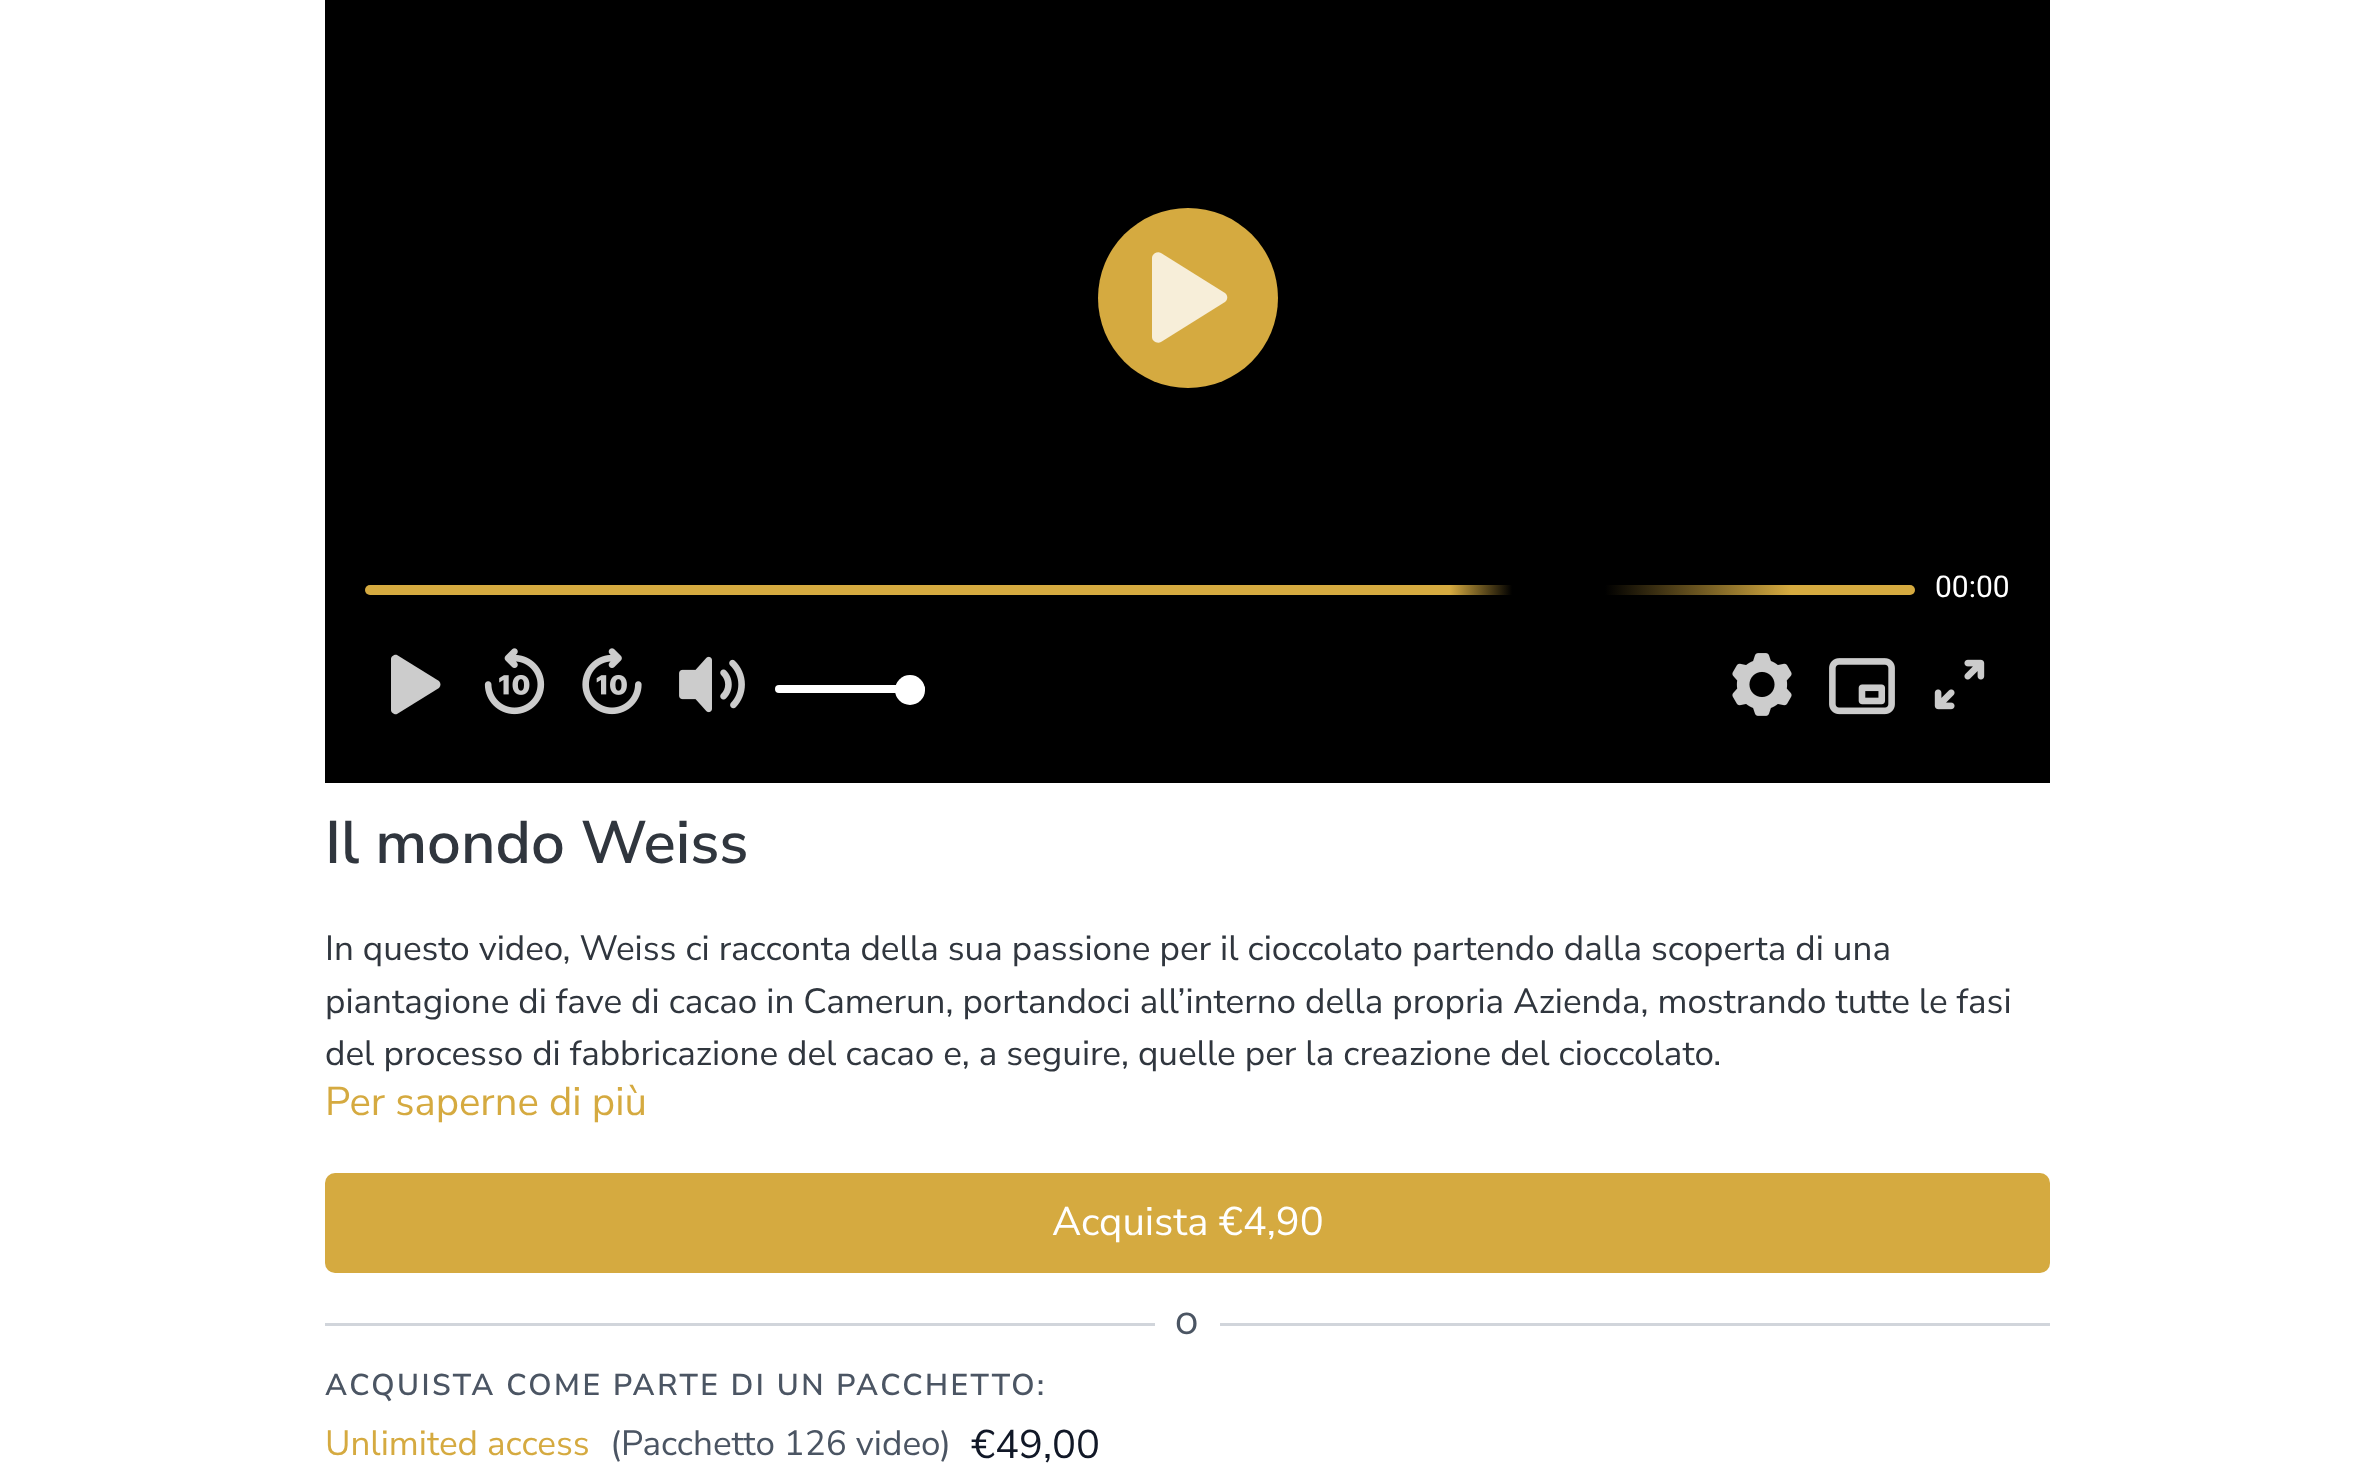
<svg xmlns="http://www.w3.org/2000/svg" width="2374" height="1483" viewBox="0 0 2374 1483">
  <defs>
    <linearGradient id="g1" gradientUnits="userSpaceOnUse" x1="365" y1="595" x2="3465" y2="595"><stop offset="0.35" stop-color="#d5aa40"/><stop offset="0.37" stop-color="#000"/><stop offset="0.4" stop-color="#000"/><stop offset="0.46" stop-color="#d5aa40"/><stop offset="1" stop-color="#d5aa40"/></linearGradient>
  </defs>
  <rect width="100%" height="100%" fill="#fff"/>
  <path d="M325 0h1725v783H325z" fill="#000"/>
  <circle cx="1188" cy="298" r="90" fill="#d5aa40"/>
  <path d="M1161 253C1157 251 1152 254 1152 258V337C1152 341 1157 344 1161 342L1225 302C1228 300 1228 295 1225 293Z" fill="#f7eed9"/>
  <rect x="365" y="585" width="1550" height="10" rx="5" fill="url(#g1)"/>
  <path d="M397 655C395 654 391 656 391 659V710C391 713 395 715 397 714L439 688C441 686 441 683 439 681Z" fill="#ccc"/>
  <image x="484" y="648" width="61" height="67" href="img/1.png"/>
  <image x="582" y="648" width="60" height="67" href="img/2.png"/>
  <image x="679" y="656" width="66" height="57" href="img/3.png"/>
  <rect x="775" y="685" width="150" height="8" rx="4" fill="#fff"/>
  <circle cx="910" cy="690" r="15" fill="#fff"/>
  <image x="1732" y="653" width="60" height="63" href="img/4.png"/>
  <image x="1829" y="658" width="66" height="57" href="img/5.png"/>
  <image x="1934" y="659" width="51" height="51" href="img/6.png"/>
  <rect x="325" y="1173" width="1725" height="100" rx="10" fill="#d5aa40"/>
  <path d="M325 1323h1725v3H325z" fill="#d1d5db"/>
  <path d="M1155 1323h65v3H1155z" fill="#fff"/>
  <text x="1935" y="597" font-family="Roboto" font-size="30" fill="#fff">00:00</text>
  <text x="325" y="863" font-family="Nunito Sans" font-size="60" font-weight="600" fill="#30363e">Il mondo Weiss</text>
  <g font-family="Nunito Sans" font-size="35" fill="#30363e">
    <text x="325" y="960">In questo video, Weiss ci racconta della sua passione per il cioccolato partendo dalla scoperta di una</text>
    <text x="325" y="1013">piantagione di fave di cacao in Camerun, portandoci all’interno della propria Azienda, mostrando tutte le fasi</text>
    <text x="325" y="1065">del processo di fabbricazione del cacao e, a seguire, quelle per la creazione del cioccolato.</text>
  </g>
  <text x="325" y="1115" font-family="Nunito Sans" font-size="40" fill="#d5aa40">Per saperne di più</text>
  <text x="1052" y="1235" font-family="Nunito Sans" font-size="40" fill="#fff">Acquista €4,90</text>
  <g font-family="Nunito Sans" font-size="30" font-weight="600" letter-spacing="2.5" fill="#4b5563">
    <text x="1175" y="1334">O</text>
    <text x="325" y="1395">ACQUISTA COME PARTE DI UN PACCHETTO:</text>
  </g>
  <text x="325" y="1455" font-family="Nunito Sans" font-size="35" fill="#d5aa40">Unlimited access</text>
  <text x="610" y="1455" font-family="Nunito Sans" font-size="35" fill="#4b5563">(Pacchetto 126 video)</text>
  <text x="971" y="1458" font-family="Nunito Sans" font-size="40" fill="#111827">€49,00</text>
</svg>
